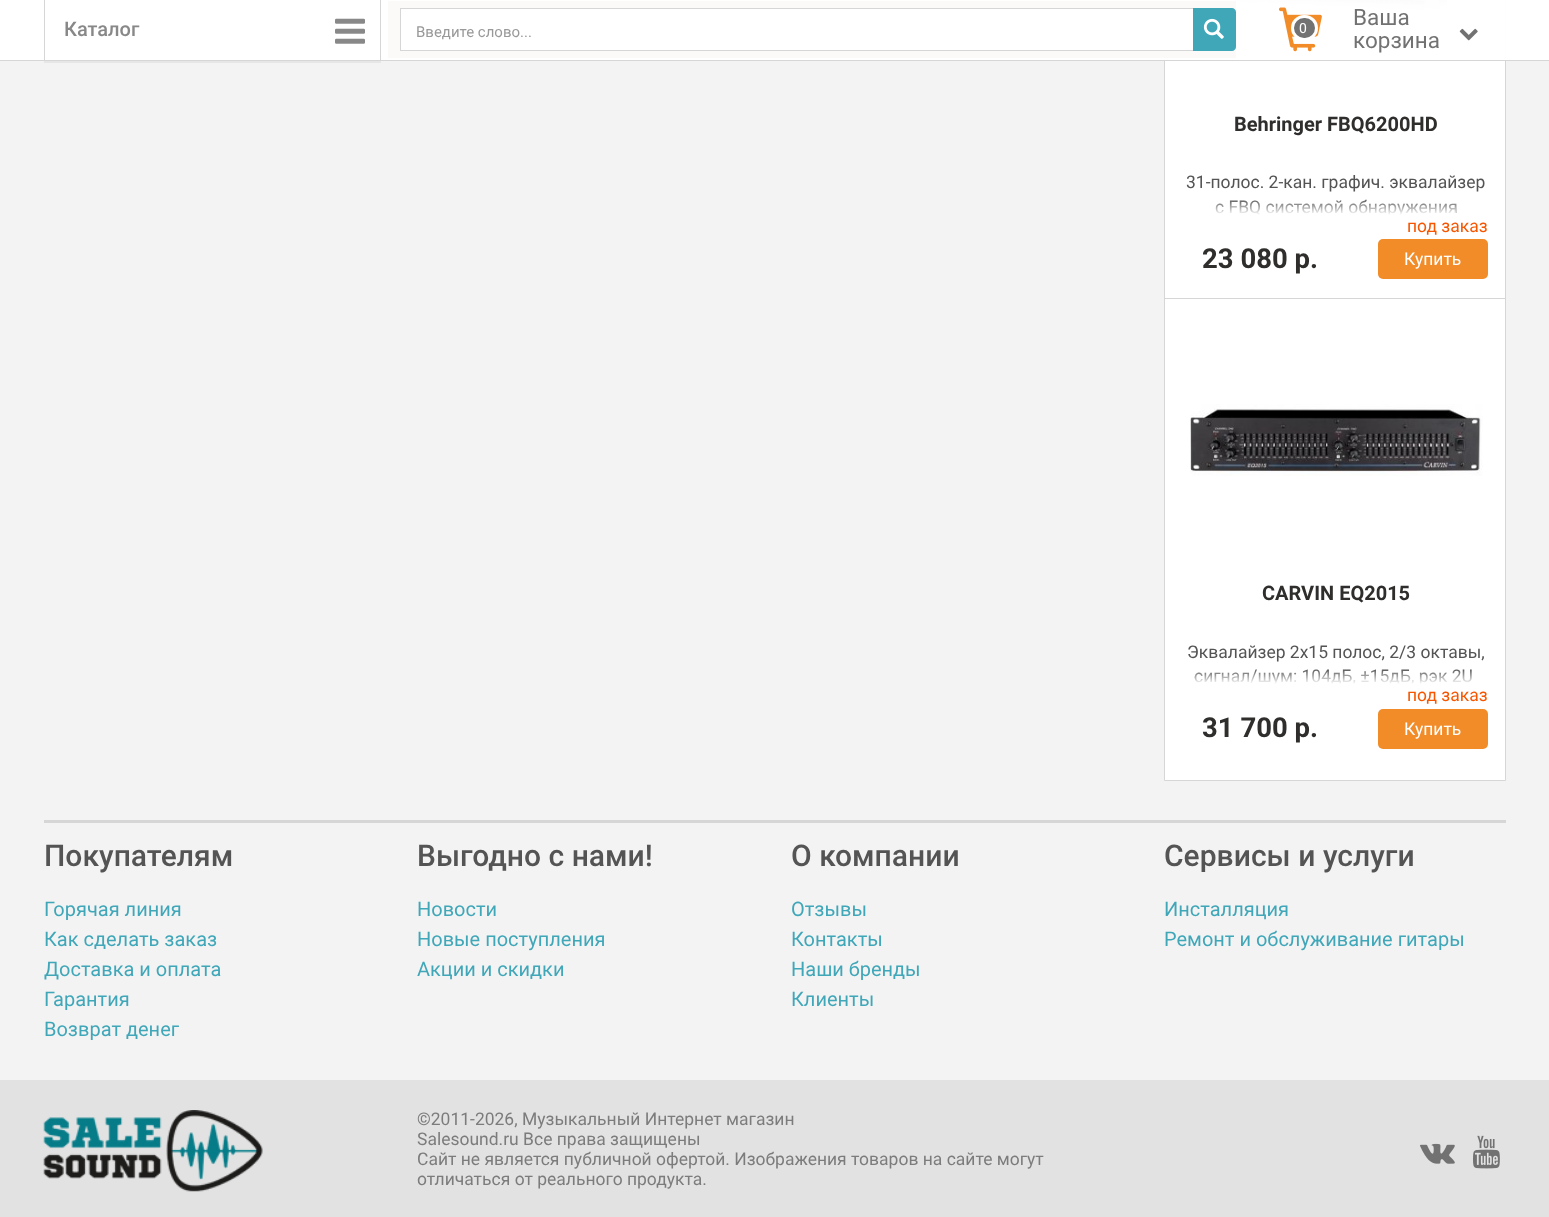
<svg xmlns="http://www.w3.org/2000/svg" width="1549" height="1217" viewBox="0 0 1549 1217">
  <defs>
    <clipPath id="clip1"><path d="M1184 171h304v44H1184z"/></clipPath>
    <linearGradient id="g1" gradientUnits="userSpaceOnUse" x1="1336" y1="199" x2="1336" y2="215"><stop offset="0" stop-color="#fff" stop-opacity="0"/><stop offset="1" stop-color="#fff"/></linearGradient>
    <clipPath id="clip2"><path d="M1184 640h304v44H1184z"/></clipPath>
    <linearGradient id="g2" gradientUnits="userSpaceOnUse" x1="1336" y1="669" x2="1336" y2="684"><stop offset="0" stop-color="#fff" stop-opacity="0"/><stop offset="1" stop-color="#fff"/></linearGradient>
  </defs>
  <rect width="100%" height="100%" fill="#f3f3f3"/>
  <path d="M1164.5 -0.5h341v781H1164.5z" fill="#fff" stroke="#d6d6d6"/>
  <image x="1225" y="0" width="223" height="18" href="img/5.png"/>
  <path d="M0 0h1549v60H0z" fill="#fffffff7"/>
  <path d="M0 60h1549v1H0z" fill="#d6d6d6"/>
  <path d="M44 1h337v62H44z" fill="#0000000d" filter="blur(0.5px)"/>
  <path d="M45 1h335v59H45z" fill="#fff"/>
  <path d="M380 0h1v61H380z" fill="#d6d6d6"/>
  <path d="M44 60h337v1H44z" fill="#d6d6d6"/>
  <path d="M44 0h1v61H44z" fill="#d6d6d6"/>
  <image x="335" y="18" width="30" height="26" href="img/1.png"/>
  <path d="M388 1h848v57H388z" fill="#fcfaf9"/>
  <path d="M401 9h792v41H401z" fill="#fff"/>
  <path d="M400 8h800v1H400z" fill="#d6d6d6"/>
  <path d="M400 50h800v1H400z" fill="#d6d6d6"/>
  <path d="M400 8h1v43H400z" fill="#d6d6d6"/>
  <path d="M1193 8H1232C1234 8 1236 10 1236 12V47C1236 49 1234 51 1232 51H1193Z" fill="#40a7b9"/>
  <image x="1203" y="18" width="21" height="21" href="img/2.png"/>
  <image x="1279" y="7" width="43" height="45" href="img/3.png"/>
  <rect x="1292.5" y="16.5" width="24" height="23" rx="11.5" fill="#727272" stroke="#fff" stroke-width="3"/>
  <image x="1459" y="28" width="19" height="13" href="img/4.png"/>
  <path d="M1165 298h340v1H1165z" fill="#d6d6d6"/>
  <rect x="1378" y="239" width="110" height="40" rx="5" fill="#f18c29"/>
  <image x="1190" y="404" width="293" height="72" href="img/6.png"/>
  <rect x="1378" y="709" width="110" height="40" rx="5" fill="#f18c29"/>
  <path d="M44 820h1462v3H44z" fill="#d6d6d6"/>
  <path d="M0 1080h1549v137H0z" fill="#e2e2e2"/>
  <image x="43" y="1110" width="220" height="82" href="img/7.png"/>
  <image x="1420" y="1143" width="35" height="21" href="img/8.png"/>
  <image x="1473" y="1135" width="27" height="34" href="img/9.png"/>
  <text x="64" y="36" font-family="Roboto" font-size="20" font-weight="500" fill="#888">Каталог</text>
  <text x="416" y="37" font-family="Roboto" font-size="15" fill="#999">Введите слово...</text>
  <g font-family="Roboto" font-size="22.5" fill="#727272">
    <text x="1353" y="25">Ваша</text>
    <text x="1353" y="48">корзина</text>
  </g>
  <text x="1299" y="33" font-family="Roboto" font-size="14" fill="#fff">0</text>
  <text x="1234" y="131" font-family="Roboto" font-size="20" font-weight="bold" fill="#2f2e2d">Behringer FBQ6200HD</text>
  <text x="1186" y="188" font-family="Roboto" font-size="17.5" fill="#545454">31-полос. 2-кан. графич. эквалайзер</text>
  <g clip-path="url(#clip1)">
    <text x="1215" y="213" font-family="Roboto" font-size="17.5" fill="#545454">с FBQ системой обнаружения</text>
  </g>
  <path d="M1215 200h241v15H1215z" fill="url(#g1)"/>
  <text x="1407" y="232" font-family="Roboto" font-size="17.5" fill="#f65600">под заказ</text>
  <text x="1202" y="268" font-family="Roboto" font-size="27.5" font-weight="bold" fill="#2f2e2d">23 080 р.</text>
  <text x="1404" y="265" font-family="Roboto" font-size="17.5" fill="#fff">Купить</text>
  <text x="1262" y="600" font-family="Roboto" font-size="20" font-weight="bold" fill="#2f2e2d">CARVIN EQ2015</text>
  <text x="1187" y="658" font-family="Roboto" font-size="17.5" fill="#545454">Эквалайзер 2х15 полос, 2/3 октавы,</text>
  <g clip-path="url(#clip2)">
    <text x="1194" y="682" font-family="Roboto" font-size="17.5" fill="#545454">сигнал/шум: 104дБ, ±15дБ, рэк 2U</text>
  </g>
  <path d="M1195 669h277v15H1195z" fill="url(#g2)"/>
  <text x="1407" y="701" font-family="Roboto" font-size="17.5" fill="#f65600">под заказ</text>
  <text x="1202" y="737" font-family="Roboto" font-size="27.5" font-weight="bold" fill="#2f2e2d">31 700 р.</text>
  <text x="1404" y="735" font-family="Roboto" font-size="17.5" fill="#fff">Купить</text>
  <text x="44" y="866" font-family="Roboto" font-size="30" font-weight="500" fill="#545454">Покупателям</text>
  <g font-family="Roboto" font-size="20" fill="#40a7b9">
    <text x="44" y="916">Горячая линия</text>
    <text x="44" y="946">Как сделать заказ</text>
    <text x="44" y="976">Доставка и оплата</text>
    <text x="44" y="1006">Гарантия</text>
    <text x="44" y="1036">Возврат денег</text>
  </g>
  <text x="417" y="866" font-family="Roboto" font-size="30" font-weight="500" fill="#545454">Выгодно с нами!</text>
  <g font-family="Roboto" font-size="20" fill="#40a7b9">
    <text x="417" y="916">Новости</text>
    <text x="417" y="946">Новые поступления</text>
    <text x="417" y="976">Акции и скидки</text>
  </g>
  <text x="791" y="866" font-family="Roboto" font-size="30" font-weight="500" fill="#545454">О компании</text>
  <g font-family="Roboto" font-size="20" fill="#40a7b9">
    <text x="791" y="916">Отзывы</text>
    <text x="791" y="946">Контакты</text>
    <text x="791" y="976">Наши бренды</text>
    <text x="791" y="1006">Клиенты</text>
  </g>
  <text x="1164" y="866" font-family="Roboto" font-size="30" font-weight="500" fill="#545454">Сервисы и услуги</text>
  <g font-family="Roboto" font-size="20" fill="#40a7b9">
    <text x="1164" y="916">Инсталляция</text>
    <text x="1164" y="946">Ремонт и обслуживание гитары</text>
  </g>
  <g font-family="Roboto" font-size="17.5" fill="#7c7c7c">
    <text x="417" y="1125">©2011-2026, Музыкальный Интернет магазин</text>
    <text x="417" y="1145">Salesound.ru Все права защищены</text>
    <text x="417" y="1165">Сайт не является публичной офертой. Изображения товаров на сайте могут</text>
    <text x="417" y="1185">отличаться от реального продукта.</text>
  </g>
</svg>
